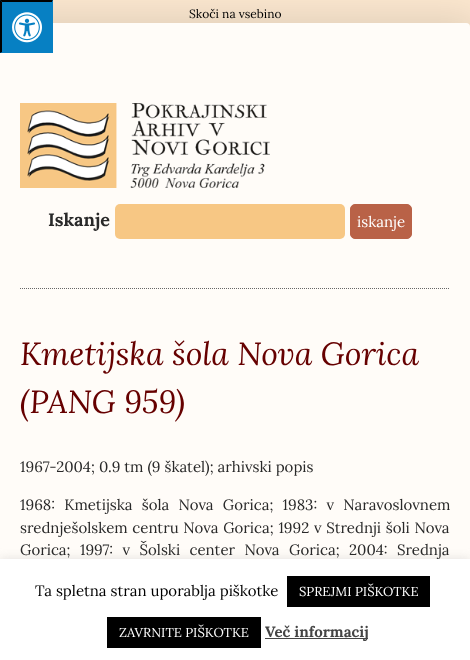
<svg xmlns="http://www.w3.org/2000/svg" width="470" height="660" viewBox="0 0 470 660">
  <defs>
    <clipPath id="clip1"><path d="M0 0H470V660H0ZM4 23H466C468 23 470 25 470 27V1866C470 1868 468 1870 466 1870H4C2 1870 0 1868 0 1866V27C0 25 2 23 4 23Z" clip-rule="evenodd"/></clipPath>
  </defs>
  <rect width="100%" height="100%" fill="#fbe7cf"/>
  <g clip-path="url(#clip1)">
    <rect x="-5" y="18" width="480" height="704" rx="9" fill="#0000001c" filter="blur(17.5px)"/>
  </g>
  <rect y="23" width="470" height="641" rx="4" fill="#ffffffd9"/>
  <path d="M0 0h53v53H0z" fill="#0780c3"/>
  <path d="M0 0H53L52 2H2Z" fill="#000"/>
  <path d="M53 0V53L52 52V2Z" fill="#0780c3"/>
  <path d="M0 53V0L2 2V52Z" fill="#000"/>
  <image x="12" y="12" width="30" height="31" href="img/1.png"/>
  <image x="20" y="103" width="250" height="85" href="img/2.png"/>
  <rect x="115" y="204" width="230" height="35" rx="5" fill="#f7c784"/>
  <rect x="350.5" y="204.5" width="61" height="34" rx="4.5" fill="#b96247" stroke="#b96247"/>
  <path d="M20 288.5H450" fill="none" stroke="#666" stroke-dasharray="1 1"/>
  <path d="M0 558h470v101H0z" fill="#acabab4d" filter="blur(5px)"/>
  <text x="189" y="18" font-family="Lora" font-size="12" fill="#000">Skoči na vsebino</text>
  <text x="48" y="226" font-family="Lora" font-size="18" font-weight="bold" fill="#292929">Iskanje</text>
  <text x="357" y="227" font-family="Lora" font-size="15" fill="#fff">iskanje</text>
  <g font-family="Lora" font-size="32" font-style="italic" fill="#600">
    <text x="20" y="365">Kmetijska šola Nova Gorica</text>
    <text x="20" y="413">(PANG 959)</text>
  </g>
  <g font-family="Lora" font-size="15" fill="#292929">
    <text x="20" y="472">1967-2004; 0.9 tm (9 škatel); arhivski popis</text>
    <text x="20" y="510" word-spacing="5.25">1968: Kmetijska šola Nova Gorica; 1983: v Naravoslovnem</text>
    <text x="20" y="533" word-spacing="0.75">srednješolskem centru Nova Gorica; 1992 v Strednji šoli Nova</text>
    <text x="20" y="555" word-spacing="5.5">Gorica; 1997: v Šolski center Nova Gorica; 2004: Srednja</text>
  </g>
  <path d="M0 559h470v101H0z" fill="#fff"/>
  <text x="35" y="596" font-family="Lora" font-size="15" fill="#000">Ta spletna stran uporablja piškotke</text>
  <path d="M287 576h143v31H287z" fill="#000"/>
  <text x="299" y="596" font-family="Lora" font-size="13" fill="#fff">SPREJMI PIŠKOTKE</text>
  <path d="M107 617h154v31H107z" fill="#000"/>
  <text x="119" y="637" font-family="Lora" font-size="13" fill="#fff">ZAVRNITE PIŠKOTKE</text>
  <path d="M265 638h103v1H265z" fill="#444"/>
  <text x="265" y="637" font-family="Lora" font-size="15" font-weight="bold" fill="#444">Več informacij</text>
</svg>
